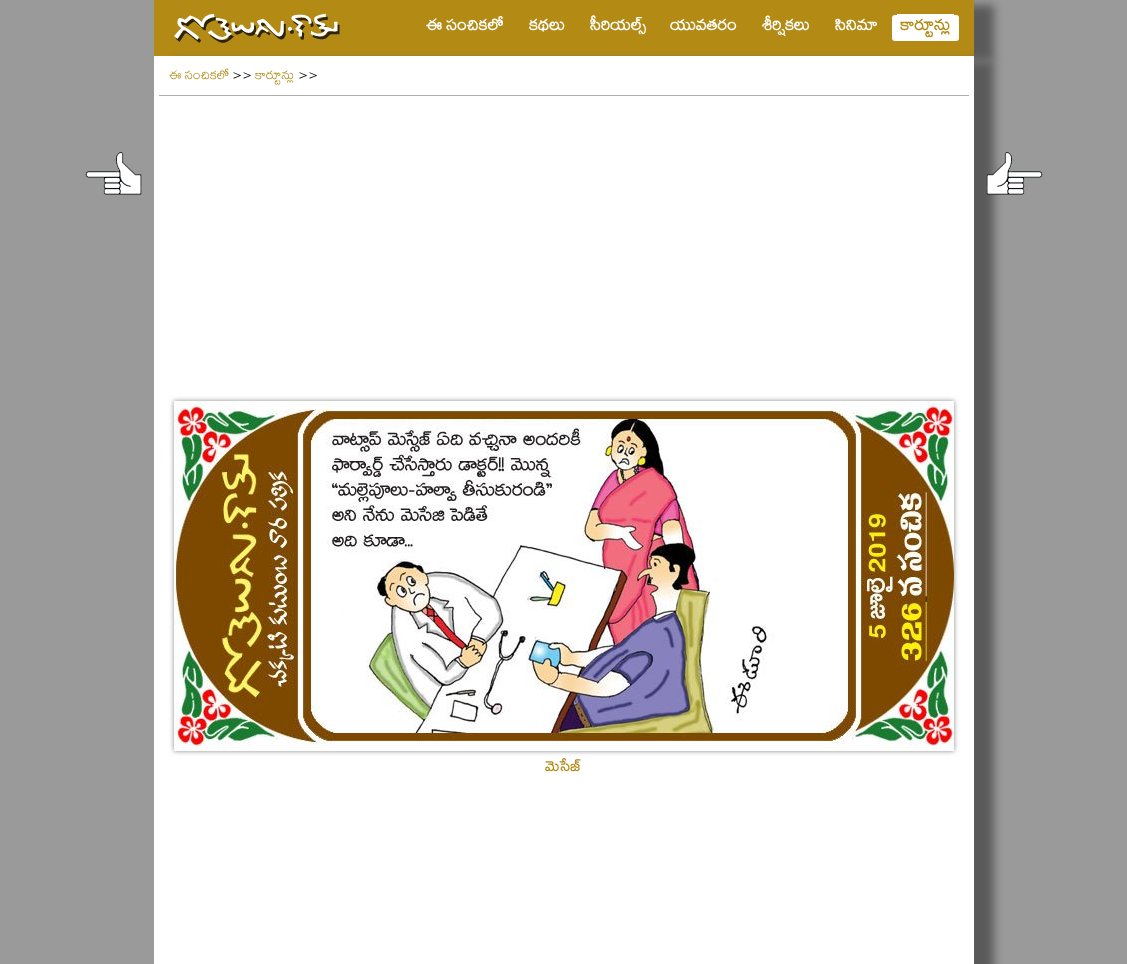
<svg xmlns="http://www.w3.org/2000/svg" width="1127" height="964" viewBox="0 0 1127 964">
  <rect width="100%" height="100%" fill="#9a9a9a"/>
  <path d="M174 5h820v56H174z" fill="#5a5a5a" filter="blur(5px)"/>
  <path d="M154 0h820v56H154z" fill="#b28a14"/>
  <image x="174" y="13" width="166" height="30" href="img/1.png"/>
  <rect x="892" y="15" width="67" height="26" rx="3" fill="#fff"/>
  <path d="M897 14h57v1H897z" fill="#fff"/>
  <image x="85" y="152" width="57" height="43" href="img/2.png"/>
  <path d="M174 61h820v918H174z" fill="#5a5a5a" filter="blur(5px)"/>
  <path d="M154 56h820v908H154z" fill="#fff"/>
  <path d="M159 95h810v1H159z" fill="#adadad"/>
  <path d="M174 401h780v350H174z" fill="#888" filter="blur(2.5px)"/>
  <image x="174" y="401" width="780" height="350" href="img/3.png"/>
  <image x="986" y="152" width="57" height="43" href="img/4.png"/>
  <g font-family="Mallanna" font-size="18" font-weight="bold" fill="#fff">
    <text x="426" y="30">ఈ సంచికలో</text>
    <text x="529" y="30">కథలు</text>
    <text x="590" y="30">సీరియల్స్</text>
    <text x="670" y="30">యువతరం</text>
    <text x="762" y="30">శీర్షికలు</text>
    <text x="835" y="30">సినిమా</text>
  </g>
  <text x="900" y="30" font-family="Mallanna" font-size="18" font-weight="bold" fill="#b28a14">కార్టూన్లు</text>
  <text x="169" y="79" font-family="Mallanna" font-size="14" fill="#b28a14">ఈ సంచికలో</text>
  <text x="232" y="79" font-family="Mallanna" font-size="14" fill="#000">&gt;&gt;</text>
  <text x="255" y="79" font-family="Mallanna" font-size="14" fill="#b28a14">కార్టూన్లు</text>
  <text x="298" y="79" font-family="Mallanna" font-size="14" fill="#000">&gt;&gt;</text>
  <text x="545" y="771" font-family="Mallanna" font-size="16" font-weight="bold" fill="#b28a14">మెసేజ్</text>
</svg>
